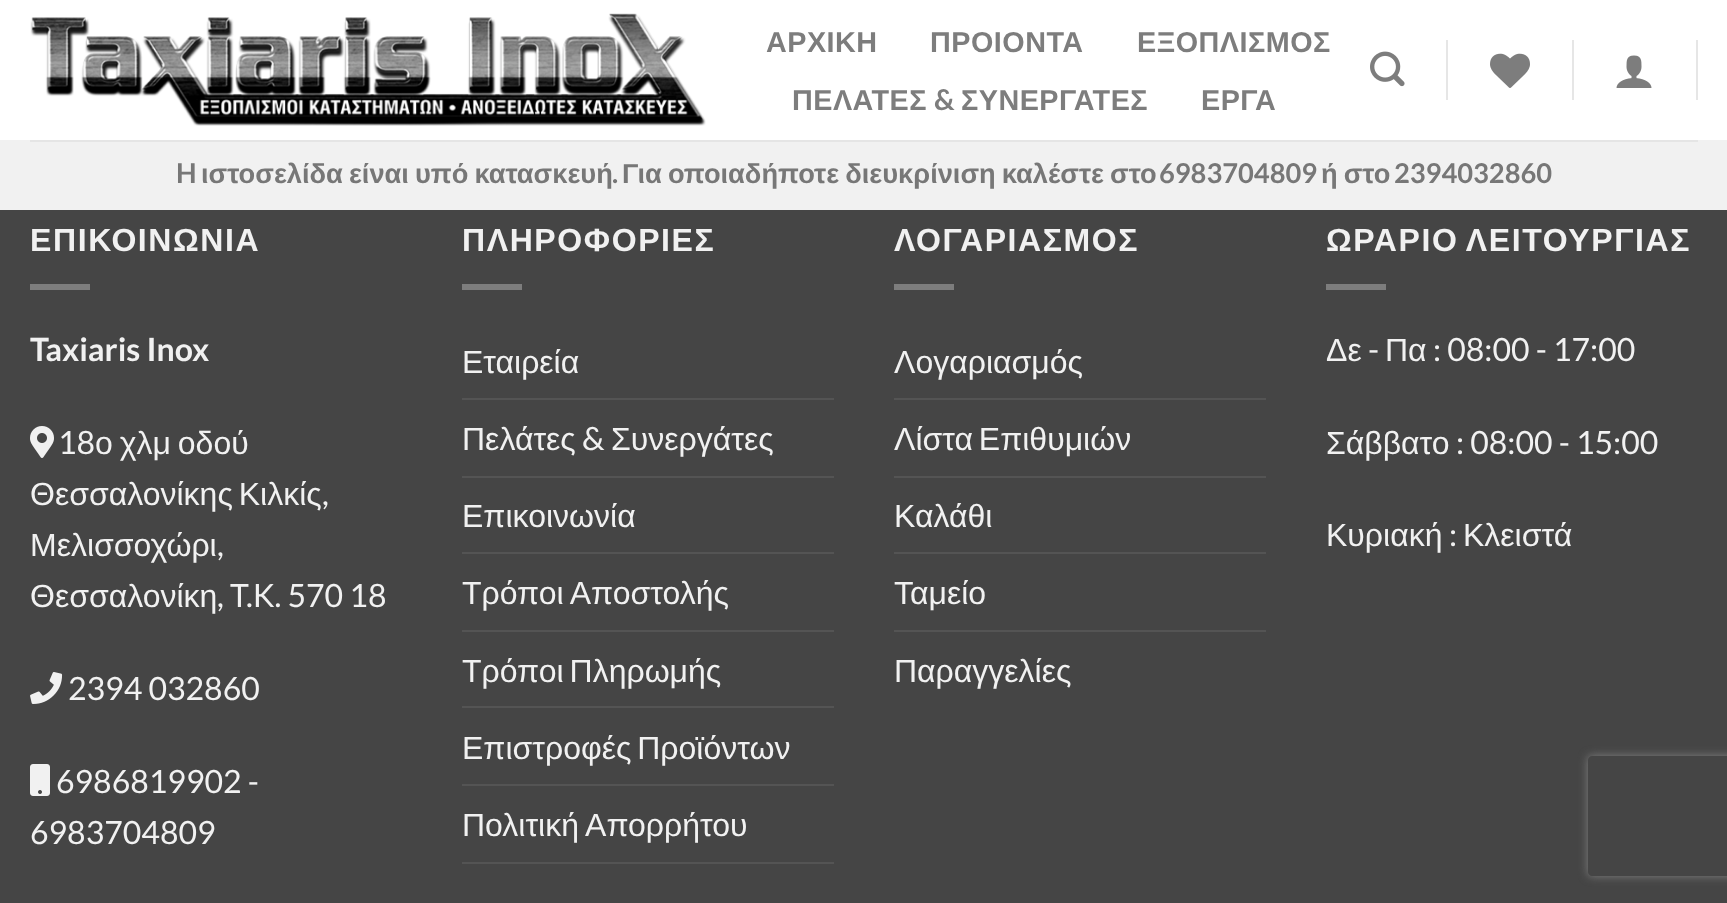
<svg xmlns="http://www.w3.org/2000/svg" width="1727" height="903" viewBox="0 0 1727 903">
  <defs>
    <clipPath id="clip1"><path d="M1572 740H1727V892H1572ZM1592 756H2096C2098 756 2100 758 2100 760V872C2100 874 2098 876 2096 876H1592C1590 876 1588 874 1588 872V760C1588 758 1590 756 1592 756Z" clip-rule="evenodd"/></clipPath>
  </defs>
  <rect width="100%" height="100%" fill="#fff"/>
  <image x="30" y="13" width="676" height="113" href="img/1.png"/>
  <image x="1370" y="51" width="35" height="36" href="img/2.png"/>
  <path d="M1446 40h2v60H1446z" fill="#e6e6e6"/>
  <image x="1490" y="53" width="40" height="35" href="img/3.png"/>
  <path d="M1572 40h2v60H1572z" fill="#e6e6e6"/>
  <image x="1616" y="55" width="36" height="33" href="img/4.png"/>
  <path d="M1696 40h2v60H1696z" fill="#e6e6e6"/>
  <path d="M0 140h1727v70H0z" fill="#f1f1f1"/>
  <path d="M30 140h1668v2H30z" fill="#e5e5e5"/>
  <path d="M0 210h1727v693H0z" fill="#454545"/>
  <path d="M30 284h60v6H30z" fill="#7d7d7d"/>
  <image x="30" y="426" width="24" height="32" href="img/5.png"/>
  <image x="30" y="672" width="33" height="32" href="img/6.png"/>
  <image x="30" y="764" width="20" height="32" href="img/7.png"/>
  <path d="M462 284h60v6H462z" fill="#7d7d7d"/>
  <path d="M462 398h372v2H462z" fill="#545454"/>
  <path d="M462 476h372v2H462z" fill="#545454"/>
  <path d="M462 552h372v2H462z" fill="#545454"/>
  <path d="M462 630h372v2H462z" fill="#545454"/>
  <path d="M462 706h372v2H462z" fill="#545454"/>
  <path d="M462 784h372v2H462z" fill="#545454"/>
  <path d="M462 862h372v2H462z" fill="#545454"/>
  <path d="M894 284h60v6H894z" fill="#7d7d7d"/>
  <path d="M894 398h372v2H894z" fill="#545454"/>
  <path d="M894 476h372v2H894z" fill="#545454"/>
  <path d="M894 552h372v2H894z" fill="#545454"/>
  <path d="M894 630h372v2H894z" fill="#545454"/>
  <path d="M1326 284h60v6H1326z" fill="#7d7d7d"/>
  <g clip-path="url(#clip1)">
    <rect x="1588" y="756" width="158" height="120" rx="4" fill="#808080" filter="blur(5px)"/>
  </g>
  <g font-family="Liberation Sans" font-size="28.75" font-weight="bold" letter-spacing="0.5" fill="#7d7d7d">
    <text x="766" y="52">ΑΡΧΙΚΗ</text>
    <text x="930" y="52">ΠΡΟΙΟΝΤΑ</text>
    <text x="1137" y="52">ΕΞΟΠΛΙΣΜΟΣ</text>
    <text x="792" y="110">ΠΕΛΑΤΕΣ</text>
  </g>
  <text x="934" y="110" font-family="Lato" font-size="28.75" font-weight="bold" letter-spacing="0.5" fill="#7d7d7d">&amp;</text>
  <g font-family="Liberation Sans" font-size="28.75" font-weight="bold" letter-spacing="0.5" fill="#7d7d7d">
    <text x="961" y="110">ΣΥΝΕΡΓΑΤΕΣ</text>
    <text x="1201" y="110">ΕΡΓΑ</text>
  </g>
  <text x="176" y="183" font-family="Lato" font-size="27.25" font-weight="bold" fill="#777">H</text>
  <text x="201" y="183" word-spacing="-1.5" font-family="Liberation Sans" font-size="27.25" font-weight="bold" fill="#777">ιστοσελίδα είναι υπό κατασκευή</text>
  <text x="612" y="183" font-family="Lato" font-size="27.25" font-weight="bold" fill="#777">.</text>
  <text x="622" y="183" word-spacing="-1.5" font-family="Liberation Sans" font-size="27.25" font-weight="bold" fill="#777">Για οποιαδήποτε διευκρίνιση καλέστε στο</text>
  <text x="1159" y="183" font-family="Lato" font-size="27.25" font-weight="bold" fill="#777">6983704809</text>
  <text x="1321" y="183" word-spacing="-1.5" font-family="Liberation Sans" font-size="27.25" font-weight="bold" fill="#777">ή στο</text>
  <text x="1394" y="183" font-family="Lato" font-size="27.25" font-weight="bold" fill="#777">2394032860</text>
  <text x="30" y="251" font-family="Liberation Sans" font-size="32" font-weight="bold" letter-spacing="1.6" fill="#f1f1f1">ΕΠΙΚΟΙΝΩΝΙΑ</text>
  <text x="30" y="361" font-family="Lato" font-size="32" font-weight="bold" fill="#f1f1f1">Taxiaris Inox</text>
  <text x="58" y="454" font-family="Lato" font-size="32" fill="#f1f1f1">18</text>
  <g font-family="Liberation Sans" font-size="32" fill="#f1f1f1">
    <text x="95" y="454" word-spacing="-2">ο χλμ οδού</text>
    <text x="30" y="505" word-spacing="-3">Θεσσαλονίκης Κιλκίς</text>
  </g>
  <text x="322" y="505" font-family="Lato" font-size="32" fill="#f1f1f1">,</text>
  <text x="30" y="556" font-family="Liberation Sans" font-size="32" fill="#f1f1f1">Μελισσοχώρι</text>
  <text x="217" y="556" font-family="Lato" font-size="32" fill="#f1f1f1">,</text>
  <text x="30" y="607" font-family="Liberation Sans" font-size="32" fill="#f1f1f1">Θεσσαλονίκη</text>
  <g font-family="Lato" font-size="32" fill="#f1f1f1">
    <text x="217" y="607">, T.K. 570 18</text>
    <text x="68" y="700">2394 032860</text>
    <text x="56" y="793">6986819902 -</text>
    <text x="30" y="844">6983704809</text>
  </g>
  <text x="462" y="251" font-family="Liberation Sans" font-size="32" font-weight="bold" letter-spacing="1.6" fill="#f1f1f1">ΠΛΗΡΟΦΟΡΙΕΣ</text>
  <g font-family="Liberation Sans" font-size="32" fill="#f1f1f1">
    <text x="462" y="373">Εταιρεία</text>
    <text x="462" y="450">Πελάτες</text>
  </g>
  <text x="582" y="450" font-family="Lato" font-size="32" fill="#f1f1f1">&amp;</text>
  <g font-family="Liberation Sans" font-size="32" fill="#f1f1f1">
    <text x="611" y="450">Συνεργάτες</text>
    <text x="462" y="527">Επικοινωνία</text>
    <text x="462" y="604" word-spacing="-1">Τρόποι Αποστολής</text>
    <text x="462" y="682" word-spacing="-3">Τρόποι Πληρωμής</text>
    <text x="462" y="759" word-spacing="-3">Επιστροφές Προϊόντων</text>
    <text x="462" y="836" word-spacing="-1">Πολιτική Απορρήτου</text>
  </g>
  <text x="894" y="251" font-family="Liberation Sans" font-size="32" font-weight="bold" letter-spacing="1.6" fill="#f1f1f1">ΛΟΓΑΡΙΑΣΜΟΣ</text>
  <g font-family="Liberation Sans" font-size="32" fill="#f1f1f1">
    <text x="894" y="373">Λογαριασμός</text>
    <text x="894" y="450" word-spacing="-3">Λίστα Επιθυμιών</text>
    <text x="894" y="527">Καλάθι</text>
    <text x="894" y="604">Ταμείο</text>
    <text x="894" y="682">Παραγγελίες</text>
  </g>
  <text x="1326" y="251" word-spacing="-2" font-family="Liberation Sans" font-size="32" font-weight="bold" letter-spacing="1.6" fill="#f1f1f1">ΩΡΑΡΙΟ ΛΕΙΤΟΥΡΓΙΑΣ</text>
  <text x="1326" y="361" font-family="Liberation Sans" font-size="32" fill="#f1f1f1">Δε</text>
  <text x="1368" y="361" font-family="Lato" font-size="32" fill="#f1f1f1">-</text>
  <text x="1385" y="361" font-family="Liberation Sans" font-size="32" fill="#f1f1f1">Πα</text>
  <text x="1433" y="361" font-family="Lato" font-size="32" fill="#f1f1f1">: 08:00 - 17:00</text>
  <text x="1326" y="454" font-family="Liberation Sans" font-size="32" fill="#f1f1f1">Σάββατο</text>
  <text x="1456" y="454" font-family="Lato" font-size="32" fill="#f1f1f1">: 08:00 - 15:00</text>
  <text x="1326" y="546" font-family="Liberation Sans" font-size="32" fill="#f1f1f1">Κυριακή</text>
  <text x="1449" y="546" font-family="Lato" font-size="32" fill="#f1f1f1">:</text>
  <text x="1463" y="546" font-family="Liberation Sans" font-size="32" fill="#f1f1f1">Κλειστά</text>
</svg>
